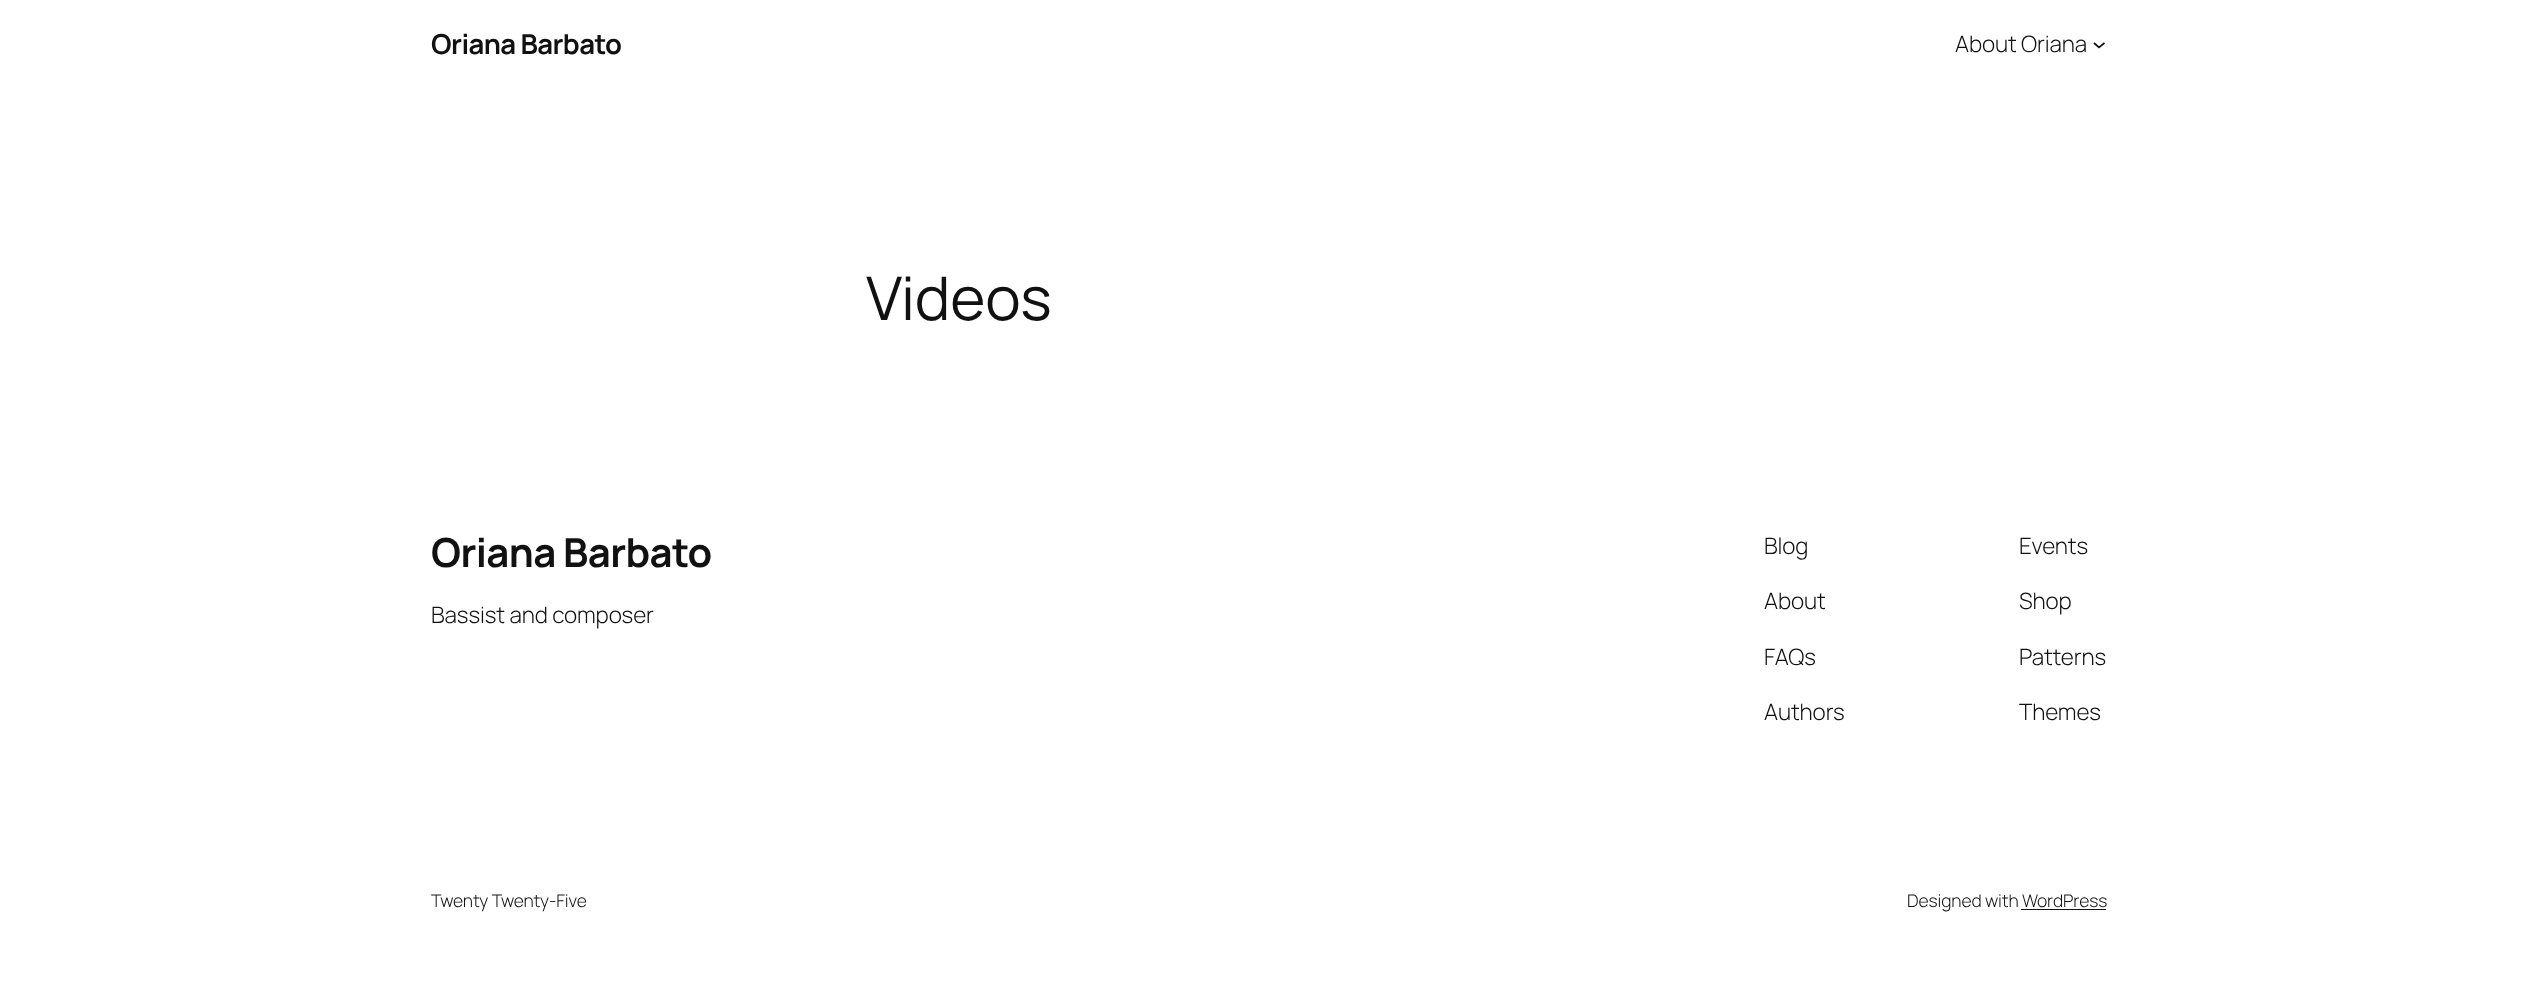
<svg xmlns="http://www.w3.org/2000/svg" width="2537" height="984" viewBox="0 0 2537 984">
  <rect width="100%" height="100%" fill="#fff"/>
  <path d="M2094 43L2099 47.5L2104.5 43" fill="none" stroke="#111" stroke-width="1.7"/>
  <path d="M2021 909h85v1H2021z" fill="#111"/>
  <text x="431" y="54" font-family="Manrope" font-size="27.5" font-weight="bold" letter-spacing="-0.6" fill="#111">Oriana Barbato</text>
  <text x="1955" y="52" font-family="Manrope" font-size="22.5" font-weight="300" letter-spacing="-0.1" fill="#111">About Oriana</text>
  <text x="866" y="320" font-family="Manrope" font-size="60" letter-spacing="-0.1" fill="#111">Videos</text>
  <text x="431" y="567" font-family="Manrope" font-size="40" font-weight="bold" letter-spacing="-0.6" fill="#111">Oriana Barbato</text>
  <g font-family="Manrope" font-size="22.5" font-weight="300" letter-spacing="-0.1" fill="#111">
    <text x="431" y="623">Bassist and composer</text>
    <text x="1764" y="554">Blog</text>
    <text x="1764" y="609">About</text>
    <text x="1764" y="665">FAQs</text>
    <text x="1764" y="720">Authors</text>
    <text x="2019" y="554">Events</text>
    <text x="2019" y="609">Shop</text>
    <text x="2019" y="665">Patterns</text>
    <text x="2019" y="720">Themes</text>
  </g>
  <g font-family="Manrope" font-size="17.5" font-weight="300" letter-spacing="-0.1" fill="#111">
    <text x="431" y="907">Twenty Twenty-Five</text>
    <text x="1907" y="907">Designed with WordPress</text>
  </g>
</svg>
